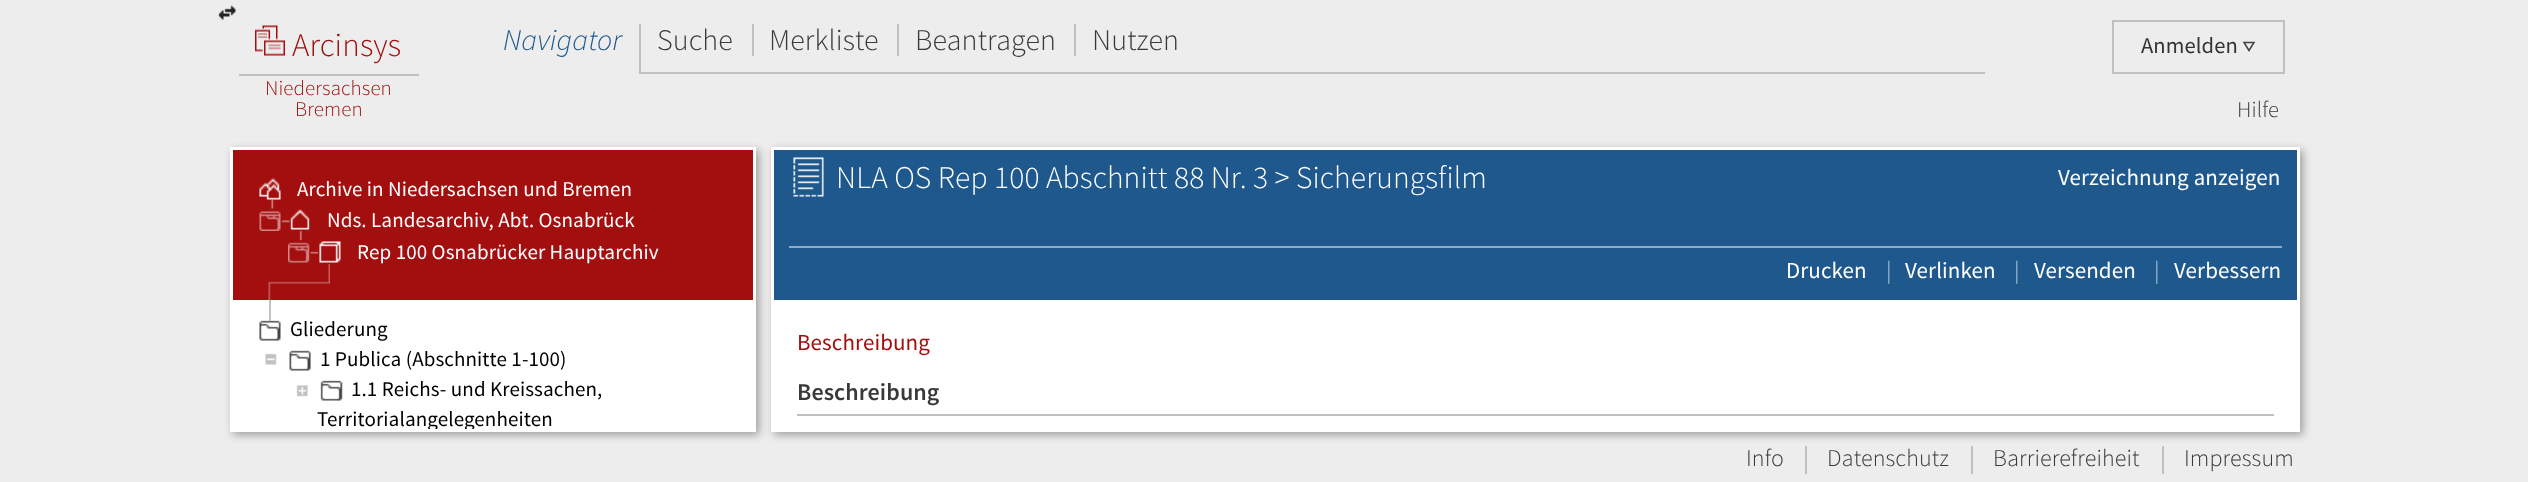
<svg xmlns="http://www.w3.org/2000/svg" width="2528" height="482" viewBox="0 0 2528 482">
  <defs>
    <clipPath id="clip1"><path d="M233 300h520v129H233z"/></clipPath>
  </defs>
  <rect width="100%" height="100%" fill="#ededed"/>
  <image x="218" y="5" width="18" height="15" href="img/1.png"/>
  <image x="255" y="25" width="30" height="31" href="img/2.png"/>
  <path d="M239 74h180v2H239z" fill="#c0c0c0"/>
  <path d="M639 72h1346v2H639z" fill="#c0c0c0"/>
  <path d="M639 24h2v48H639z" fill="#c0c0c0"/>
  <path d="M752 24h2v32H752z" fill="#c0c0c0"/>
  <path d="M897 24h2v32H897z" fill="#c0c0c0"/>
  <path d="M1074 24h2v32H1074z" fill="#c0c0c0"/>
  <path d="M2113 21h171v52H2113z" fill="none" stroke="#c0c0c0" stroke-width="2"/>
  <path d="M2244 42.5H2254L2249 50.5Z" fill="none" stroke="#424242" stroke-width="1.5"/>
  <path d="M233 150h526v285H233z" fill="#00000054" filter="blur(4px)"/>
  <path d="M230 147h526v285H230z" fill="#fff"/>
  <path d="M233 150h520v150H233z" fill="#a30f0f"/>
  <image x="259" y="178" width="22" height="22" href="img/3.png"/>
  <image x="259" y="199" width="31" height="32" href="img/4.png"/>
  <image x="290" y="209" width="20" height="21" href="img/5.png"/>
  <image x="288" y="230" width="31" height="33" href="img/6.png"/>
  <image x="319" y="241" width="22" height="22" href="img/7.png"/>
  <image x="268" y="264" width="62" height="36" href="img/8.png"/>
  <image x="259" y="320" width="22" height="21" href="img/9.png"/>
  <path d="M269 300h2v21H269z" fill="#c1c1c1"/>
  <image x="265" y="353" width="12" height="12" href="img/10.png"/>
  <image x="289" y="350" width="22" height="21" href="img/11.png"/>
  <image x="296" y="385" width="12" height="12" href="img/12.png"/>
  <image x="320" y="380" width="23" height="21" href="img/13.png"/>
  <path d="M774 150h1529v285H774z" fill="#00000054" filter="blur(4px)"/>
  <path d="M771 147h1529v285H771z" fill="#fff"/>
  <path d="M774 150h1523v150H774z" fill="#1e588c"/>
  <image x="793" y="157" width="31" height="40" href="img/14.png"/>
  <path d="M789 246h1493v2H789z" fill="#8facc6"/>
  <path d="M797 414h1477v2H797z" fill="#c0c0c0"/>
  <path d="M1805 446h2v28H1805z" fill="#c0c0c0"/>
  <path d="M1971 446h2v28H1971z" fill="#c0c0c0"/>
  <path d="M2162 446h2v28H2162z" fill="#c0c0c0"/>
  <text x="292" y="56" font-family="Source Sans Pro" font-size="33" font-weight="300" letter-spacing="0.1" fill="#a30f0f">Arcinsys</text>
  <g font-family="Source Sans Pro" font-size="21" font-weight="300" letter-spacing="0.1" fill="#a30f0f">
    <text x="265" y="95">Niedersachsen</text>
    <text x="295" y="116">Bremen</text>
  </g>
  <text x="503" y="50" font-family="Source Sans Pro" font-size="30" font-weight="300" font-style="italic" letter-spacing="0.1" fill="#1e588c">Navigator</text>
  <g font-family="Source Sans Pro" font-size="30" font-weight="300" letter-spacing="0.1" fill="#393939">
    <text x="657" y="50">Suche</text>
    <text x="769" y="50">Merkliste</text>
    <text x="915" y="50">Beantragen</text>
    <text x="1092" y="50">Nutzen</text>
  </g>
  <text x="2141" y="53" font-family="Source Sans Pro" font-size="22.5" letter-spacing="0.1" fill="#333">Anmelden</text>
  <text x="2237" y="117" font-family="Source Sans Pro" font-size="22.5" font-weight="300" letter-spacing="0.1" fill="#393939">Hilfe</text>
  <g font-family="Source Sans Pro" font-size="21" letter-spacing="0.1" fill="#fff">
    <text x="297" y="196">Archive in Niedersachsen und Bremen</text>
    <text x="327" y="227">Nds. Landesarchiv, Abt. Osnabrück</text>
    <text x="357" y="259">Rep 100 Osnabrücker Hauptarchiv</text>
  </g>
  <g font-family="Source Sans Pro" font-size="21" letter-spacing="0.1" fill="#000">
    <text x="290" y="336">Gliederung</text>
    <text x="320" y="366">1 Publica (Abschnitte 1-100)</text>
    <text x="351" y="396">1.1 Reichs- und Kreissachen,</text>
  </g>
  <g clip-path="url(#clip1)">
    <text x="317" y="426" font-family="Source Sans Pro" font-size="21" letter-spacing="0.1" fill="#000">Territorialangelegenheiten</text>
  </g>
  <text x="836" y="188" font-family="Source Sans Pro" font-size="31.5" font-weight="300" letter-spacing="0.1" fill="#fff">NLA OS Rep 100 Abschnitt 88 Nr. 3 &gt; Sicherungsfilm</text>
  <g font-family="Source Sans Pro" font-size="23" letter-spacing="0.1" fill="#fff">
    <text x="2058" y="185">Verzeichnung anzeigen</text>
    <text x="1786" y="278">Drucken</text>
  </g>
  <text x="1886" y="278" font-family="Source Sans Pro" font-size="23" letter-spacing="0.1" fill="#8facc6">|</text>
  <text x="1905" y="278" font-family="Source Sans Pro" font-size="23" letter-spacing="0.1" fill="#fff">Verlinken</text>
  <text x="2014" y="278" font-family="Source Sans Pro" font-size="23" letter-spacing="0.1" fill="#8facc6">|</text>
  <text x="2034" y="278" font-family="Source Sans Pro" font-size="23" letter-spacing="0.1" fill="#fff">Versenden</text>
  <text x="2154" y="278" font-family="Source Sans Pro" font-size="23" letter-spacing="0.1" fill="#8facc6">|</text>
  <text x="2174" y="278" font-family="Source Sans Pro" font-size="23" letter-spacing="0.1" fill="#fff">Verbessern</text>
  <text x="797" y="350" font-family="Source Sans Pro" font-size="23" letter-spacing="0.1" fill="#a30f0f">Beschreibung</text>
  <text x="797" y="400" font-family="Source Sans Pro" font-size="24" font-weight="600" letter-spacing="0.1" fill="#393939">Beschreibung</text>
  <g font-family="Source Sans Pro" font-size="24" font-weight="300" letter-spacing="0.1" fill="#393939">
    <text x="1746" y="466">Info</text>
    <text x="1827" y="466">Datenschutz</text>
    <text x="1993" y="466">Barrierefreiheit</text>
    <text x="2184" y="466">Impressum</text>
  </g>
</svg>
